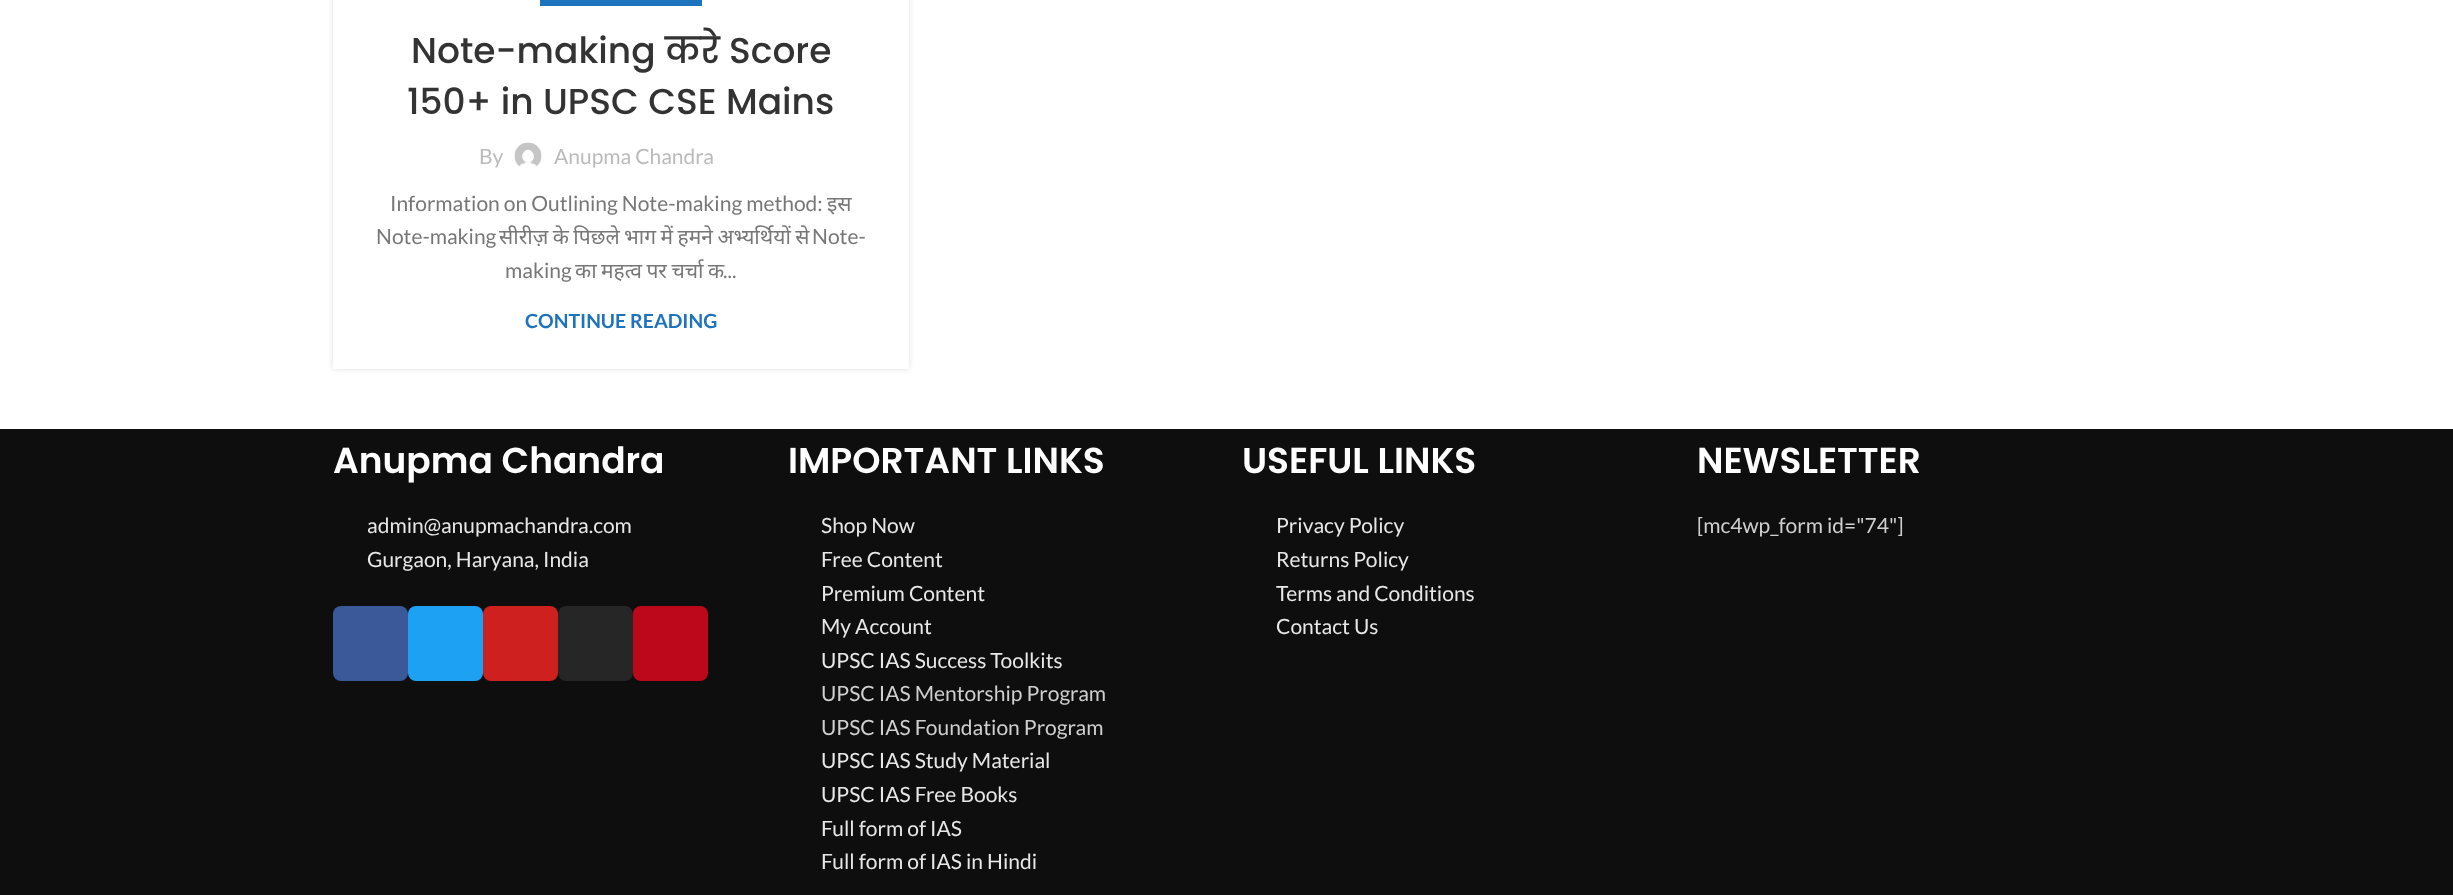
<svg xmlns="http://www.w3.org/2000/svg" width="2453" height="895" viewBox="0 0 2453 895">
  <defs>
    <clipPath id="clip1"><path d="M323 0H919V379H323ZM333-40H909V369H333Z" clip-rule="evenodd"/></clipPath>
  </defs>
  <rect width="100%" height="100%" fill="#fff"/>
  <g clip-path="url(#clip1)">
    <path d="M333 -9h576v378H333z" fill="#0000001f" filter="blur(3px)"/>
  </g>
  <path d="M540 0h162v6H540z" fill="#1e73be"/>
  <image x="514" y="142" width="28" height="26" href="img/1.png"/>
  <path d="M0 429h2453v466H0z" fill="#0e0e0e"/>
  <rect x="333" y="606" width="75" height="75" rx="8" fill="#3b5998"/>
  <rect x="408" y="606" width="75" height="75" rx="8" fill="#1da1f2"/>
  <rect x="483" y="606" width="75" height="75" rx="8" fill="#cd201f"/>
  <rect x="558" y="606" width="75" height="75" rx="8" fill="#262626"/>
  <rect x="633" y="606" width="75" height="75" rx="8" fill="#bd081c"/>
  <g font-family="Poppins" font-size="36" font-weight="500" fill="#333">
    <text x="411" y="63">Note-making करे Score</text>
    <text x="407" y="114">150+ in UPSC CSE Mains</text>
  </g>
  <g font-family="Lato" font-size="21" fill="#bbb">
    <text x="479" y="164">By</text>
    <text x="554" y="164">Anupma Chandra</text>
  </g>
  <text x="390" y="211" font-family="Lato" font-size="21" fill="#777">Information on Outlining Note-making method:</text>
  <text x="827" y="211" font-family="Noto Sans" font-size="21" fill="#777">इस</text>
  <text x="376" y="244" font-family="Lato" font-size="21" fill="#777">Note-making</text>
  <text x="499" y="244" word-spacing="-1" font-family="Noto Sans" font-size="21" fill="#777">सीरीज़ के पिछले भाग में हमने अभ्यर्थियों से</text>
  <g font-family="Lato" font-size="21" fill="#777">
    <text x="812" y="244">Note-</text>
    <text x="505" y="278">making</text>
  </g>
  <text x="575" y="278" word-spacing="-1" font-family="Noto Sans" font-size="21" fill="#777">का महत्व पर चर्चा क</text>
  <text x="723" y="278" font-family="Lato" font-size="21" fill="#777">...</text>
  <text x="525" y="328" font-family="Lato" font-size="19.5" font-weight="bold" fill="#1e73be">CONTINUE READING</text>
  <text x="333" y="473" font-family="Poppins" font-size="36" font-weight="600" fill="#fff">Anupma Chandra</text>
  <g font-family="Lato" font-size="21" fill="#e7e7e7">
    <text x="367" y="533">admin@anupmachandra.com</text>
    <text x="367" y="567">Gurgaon, Haryana, India</text>
  </g>
  <text x="788" y="473" font-family="Poppins" font-size="36" font-weight="600" fill="#fff">IMPORTANT LINKS</text>
  <g font-family="Lato" font-size="21" fill="#e7e7e7">
    <text x="821" y="533">Shop Now</text>
    <text x="821" y="567">Free Content</text>
    <text x="821" y="601">Premium Content</text>
    <text x="821" y="634">My Account</text>
    <text x="821" y="668">UPSC IAS Success Toolkits</text>
  </g>
  <g font-family="Lato" font-size="21" fill="#cfcfcf">
    <text x="821" y="701">UPSC IAS Mentorship Program</text>
    <text x="821" y="735">UPSC IAS Foundation Program</text>
  </g>
  <g font-family="Lato" font-size="21" fill="#e7e7e7">
    <text x="821" y="768">UPSC IAS Study Material</text>
    <text x="821" y="802">UPSC IAS Free Books</text>
    <text x="821" y="836">Full form of IAS</text>
    <text x="821" y="869">Full form of IAS in Hindi</text>
  </g>
  <text x="1242" y="473" font-family="Poppins" font-size="36" font-weight="600" fill="#fff">USEFUL LINKS</text>
  <g font-family="Lato" font-size="21" fill="#e7e7e7">
    <text x="1276" y="533">Privacy Policy</text>
    <text x="1276" y="567">Returns Policy</text>
    <text x="1276" y="601">Terms and Conditions</text>
    <text x="1276" y="634">Contact Us</text>
  </g>
  <text x="1697" y="473" font-family="Poppins" font-size="36" font-weight="600" fill="#fff">NEWSLETTER</text>
  <text x="1697" y="533" font-family="Lato" font-size="21" fill="#cfcfcf">[mc4wp_form id="74"]</text>
</svg>
